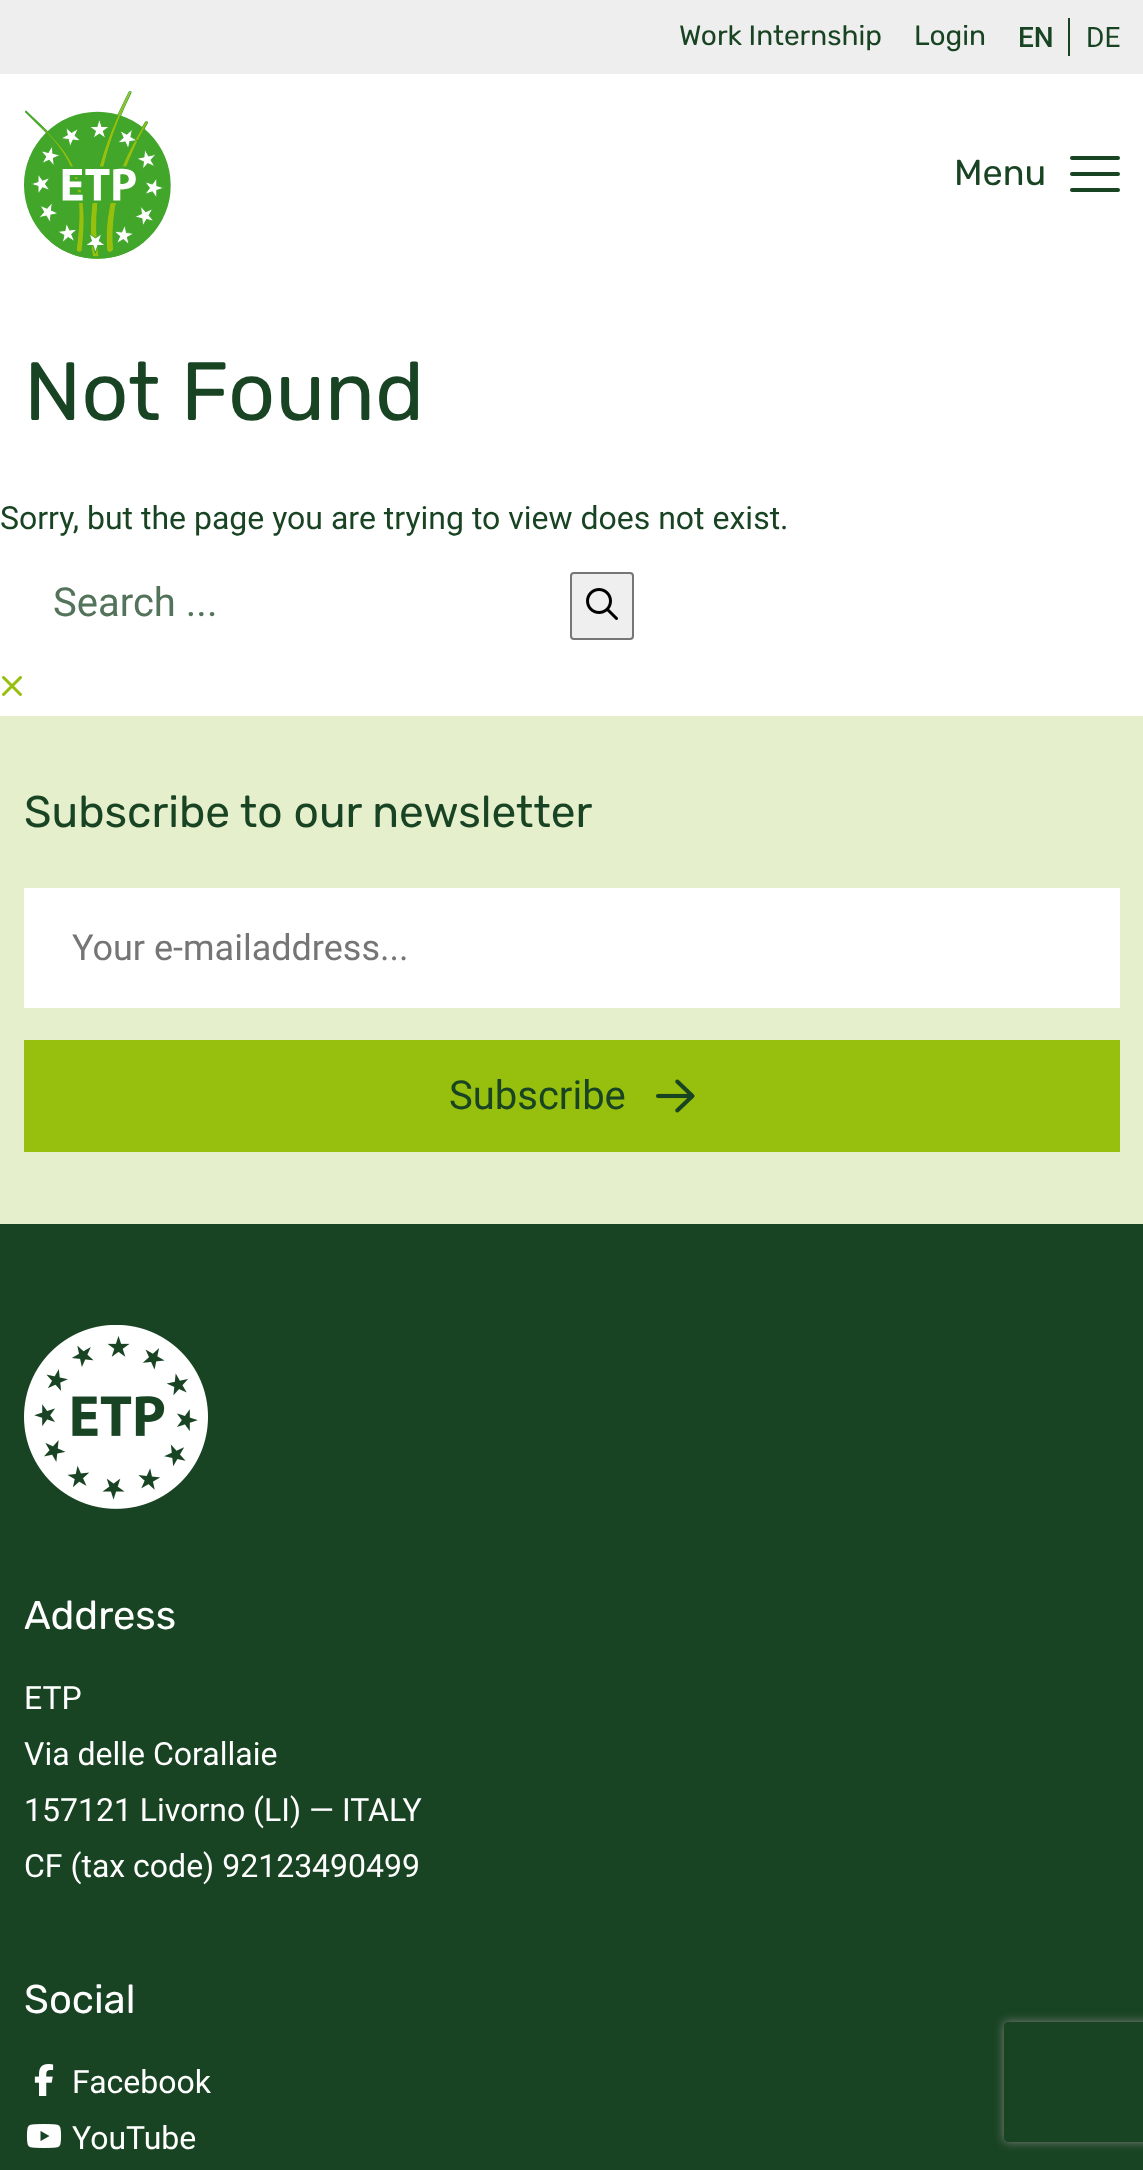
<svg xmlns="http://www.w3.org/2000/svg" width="1143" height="2170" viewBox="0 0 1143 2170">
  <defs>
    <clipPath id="clip1"><path d="M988 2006H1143V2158H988ZM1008 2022H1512C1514 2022 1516 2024 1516 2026V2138C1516 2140 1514 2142 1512 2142H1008C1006 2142 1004 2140 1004 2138V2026C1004 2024 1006 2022 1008 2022Z" clip-rule="evenodd"/></clipPath>
  </defs>
  <rect width="100%" height="100%" fill="#fff"/>
  <path d="M0 0h1143v74H0z" fill="#eee"/>
  <path d="M1068 18h2v38H1068z" fill="#194423"/>
  <image x="24" y="91" width="147" height="168" href="img/1.png"/>
  <rect x="1070" y="172" width="50" height="4" rx="2" fill="#194423"/>
  <rect x="1070" y="156" width="50" height="4" rx="2" fill="#194423"/>
  <rect x="1070" y="188" width="50" height="4" rx="2" fill="#194423"/>
  <rect x="571" y="573" width="62" height="66" rx="3" fill="#efefef" stroke="#767676" stroke-width="2"/>
  <image x="586" y="588" width="32" height="32" href="img/2.png"/>
  <image x="2" y="676" width="20" height="20" href="img/3.png"/>
  <path d="M0 1224h1143v946H0z" fill="#194423"/>
  <path d="M0 716h1143v508H0z" fill="#e5efcc"/>
  <path d="M24 888h1096v120H24z" fill="#fff"/>
  <path d="M24 1040h1096v112H24z" fill="#97bf0d"/>
  <image x="656" y="1079" width="39" height="34" href="img/4.png"/>
  <image x="24" y="1325" width="184" height="184" href="img/5.png"/>
  <image x="34" y="2064" width="20" height="32" href="img/6.png"/>
  <image x="26" y="2124" width="36" height="24" href="img/7.png"/>
  <g clip-path="url(#clip1)">
    <rect x="1004" y="2022" width="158" height="120" rx="4" fill="#808080" filter="blur(5px)"/>
  </g>
  <g font-family="Rubik" font-size="28" fill="#194423">
    <text x="679" y="45">Work Internship</text>
    <text x="914" y="45">Login</text>
  </g>
  <text x="1018" y="47" font-family="Roboto" font-size="28" font-weight="500" fill="#194423">EN</text>
  <text x="1086" y="47" font-family="Roboto" font-size="28" fill="#194423">DE</text>
  <text x="954" y="185" font-family="Rubik" font-size="36" fill="#194423">Menu</text>
  <text x="24" y="420" font-family="Rubik" font-size="82.5" fill="#194423">Not Found</text>
  <text x="0" y="529" font-family="Roboto" font-size="32" fill="#194423">Sorry, but the page you are trying to view does not exist.</text>
  <text x="53" y="616" font-family="Roboto" font-size="40" fill="#53735a">Search ...</text>
  <text x="24" y="827" font-family="Rubik" font-size="44.25" fill="#194423">Subscribe to our newsletter</text>
  <text x="72" y="960" font-family="Roboto" font-size="36" fill="#757575">Your e-mailaddress...</text>
  <text x="449" y="1109" font-family="Roboto" font-size="40" fill="#194423">Subscribe</text>
  <text x="24" y="1629" font-family="Rubik" font-size="40" fill="#fff">Address</text>
  <g font-family="Roboto" font-size="32" fill="#fff">
    <text x="24" y="1709">ETP</text>
    <text x="24" y="1765">Via delle Corallaie</text>
    <text x="24" y="1821">157121 Livorno (LI) — ITALY</text>
    <text x="24" y="1877">CF (tax code) 92123490499</text>
  </g>
  <text x="24" y="2013" font-family="Rubik" font-size="40" fill="#fff">Social</text>
  <g font-family="Roboto" font-size="32" fill="#fff">
    <text x="72" y="2093">Facebook</text>
    <text x="72" y="2149">YouTube</text>
  </g>
</svg>
